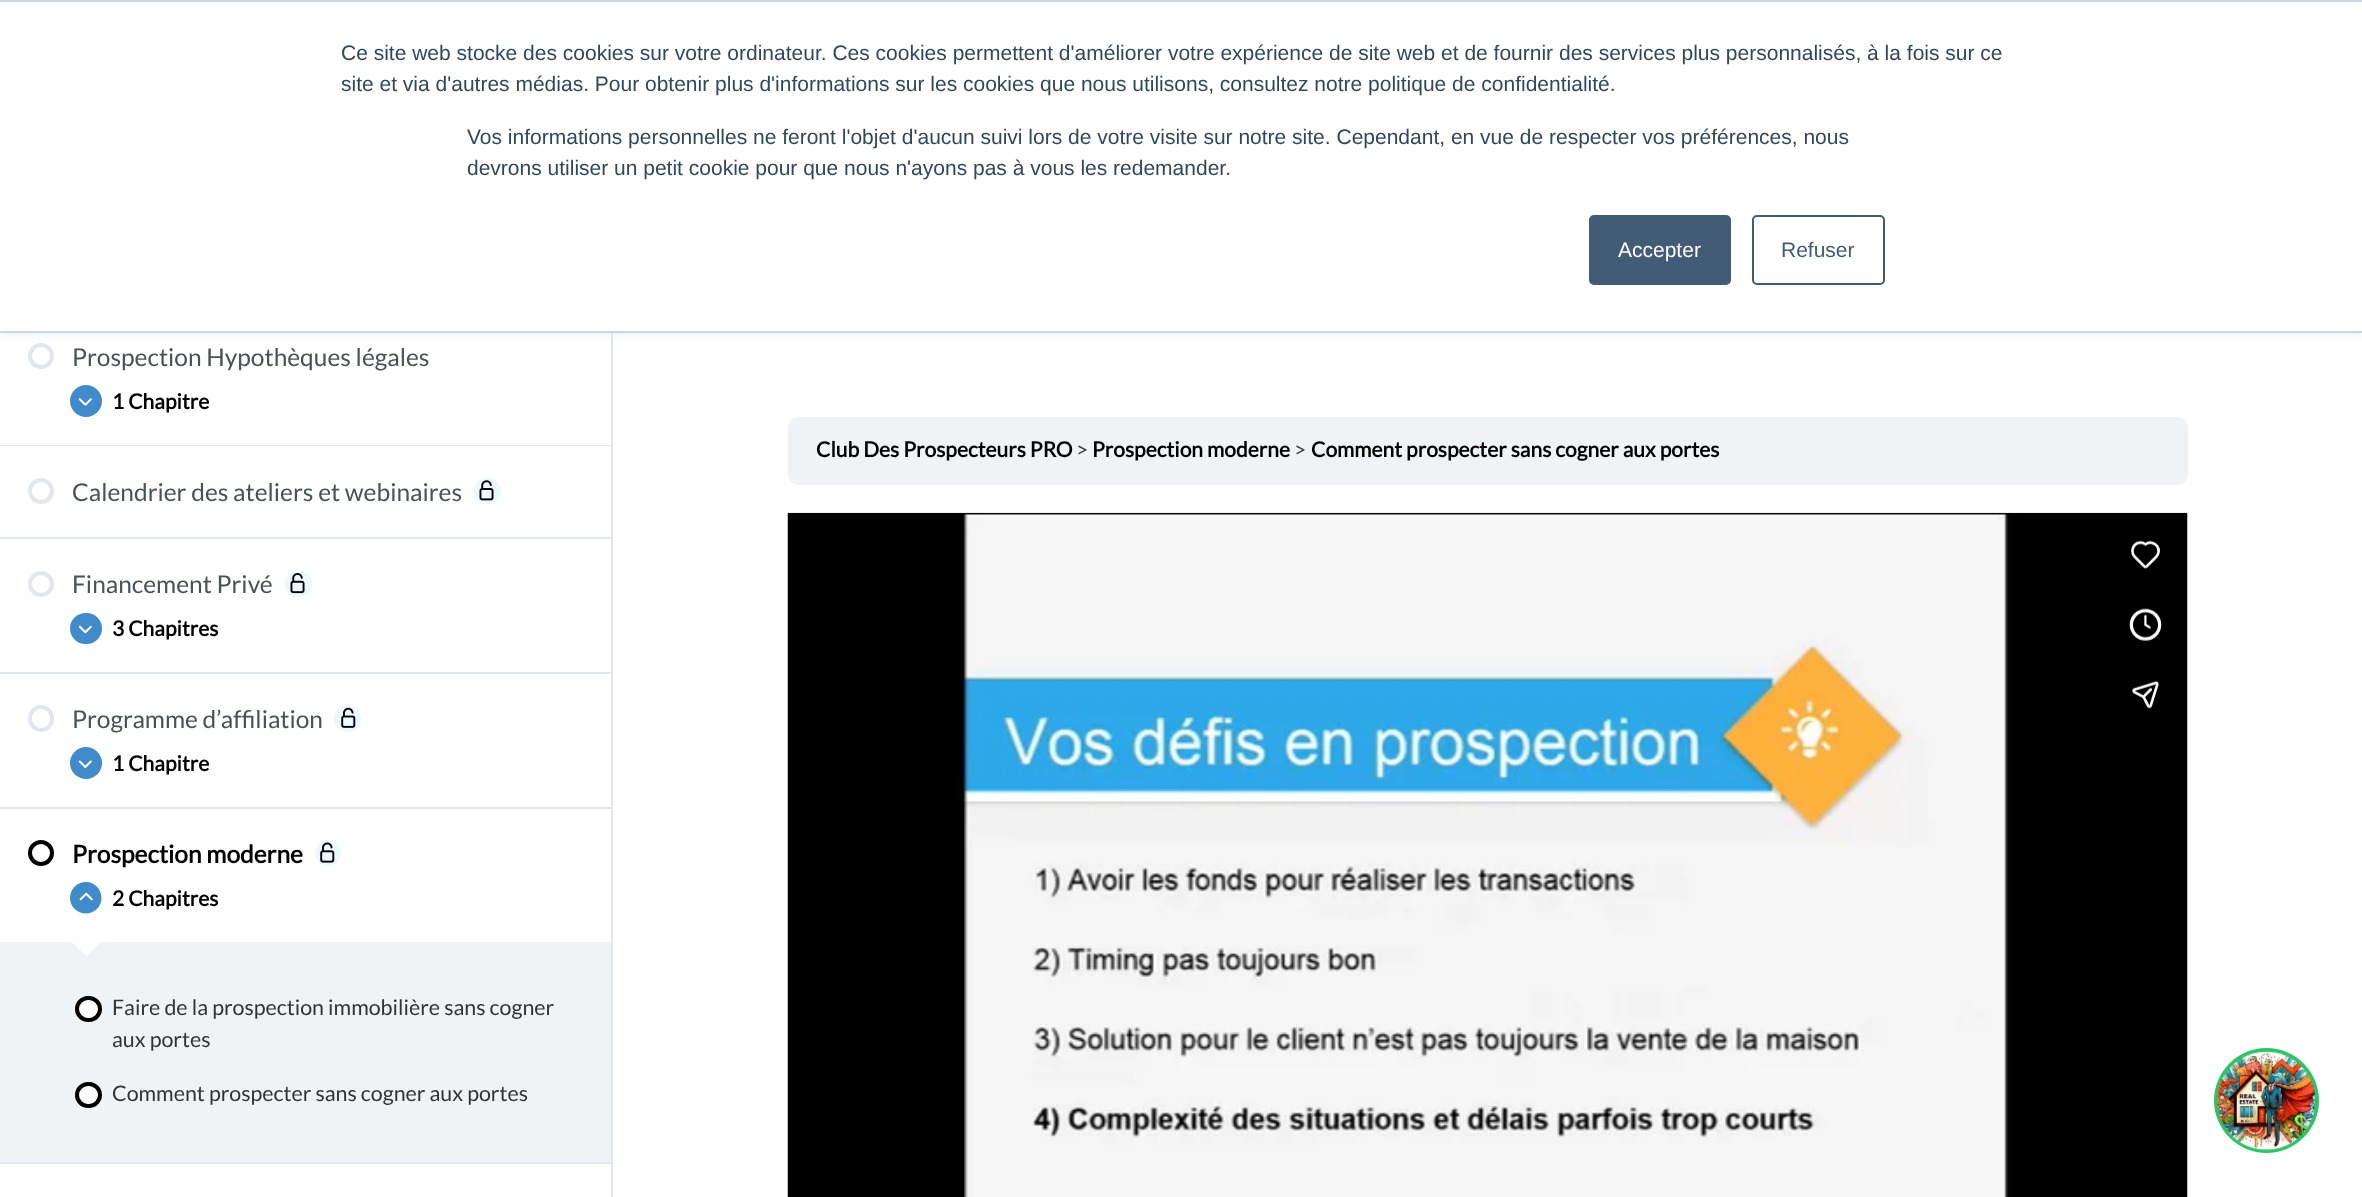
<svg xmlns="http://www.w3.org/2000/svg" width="2362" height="1197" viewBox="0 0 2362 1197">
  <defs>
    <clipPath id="clip1"><path d="M0 942h611v220H0z"/></clipPath>
  </defs>
  <rect width="100%" height="100%" fill="#fff"/>
  <path d="M611 333h2v864H611z" fill="#e2e7ed"/>
  <circle cx="41" cy="356" r="11" fill="none" stroke="#e2e7ed" stroke-width="4"/>
  <path d="M0 2h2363v332H0z" fill="#eaf0f6" filter="blur(4.5px)"/>
  <path d="M0 2h2362v329H0z" fill="#fff"/>
  <path d="M0 0h2362v2H0z" fill="#cbd6e2"/>
  <path d="M0 331h2362v2H0z" fill="#cbd6e2"/>
  <rect x="1590" y="216" width="140" height="68" rx="4" fill="#425b76" stroke="#425b76" stroke-width="2"/>
  <rect x="1753" y="216" width="131" height="68" rx="4" fill="none" stroke="#425b76" stroke-width="2"/>
  <path d="M0 445h611v1H0z" fill="#e2e7ed"/>
  <circle cx="86" cy="401" r="16" fill="#428bca"/>
  <image x="78" y="398" width="14" height="8" href="img/1.png"/>
  <path d="M0 537h611v2H0z" fill="#e2e7ed"/>
  <circle cx="41" cy="491" r="11" fill="none" stroke="#e2e7ed" stroke-width="4"/>
  <rect x="474" y="478" width="27" height="26" rx="13" fill="#ebf8fd"/>
  <image x="479" y="480" width="15" height="21" href="img/2.png"/>
  <path d="M0 672h611v2H0z" fill="#e2e7ed"/>
  <circle cx="41" cy="584" r="11" fill="none" stroke="#e2e7ed" stroke-width="4"/>
  <rect x="285" y="571" width="27" height="26" rx="13" fill="#ebf8fd"/>
  <image x="290" y="573" width="15" height="21" href="img/3.png"/>
  <rect x="70" y="613" width="32" height="31" rx="15.5" fill="#428bca"/>
  <image x="78" y="625" width="14" height="9" href="img/4.png"/>
  <path d="M0 807h611v2H0z" fill="#e2e7ed"/>
  <rect x="30" y="707" width="22" height="23" rx="11" fill="none" stroke="#e2e7ed" stroke-width="4"/>
  <circle cx="347.5" cy="718.5" r="13.5" fill="#ebf8fd"/>
  <image x="341" y="707" width="15" height="21" href="img/5.png"/>
  <circle cx="86" cy="763" r="16" fill="#428bca"/>
  <image x="78" y="760" width="14" height="8" href="img/6.png"/>
  <path d="M0 1162h611v2H0z" fill="#e2e7ed"/>
  <circle cx="41" cy="853" r="11" fill="none" stroke="#000" stroke-width="4"/>
  <circle cx="328" cy="853" r="13" fill="#ebf8fd"/>
  <image x="320" y="842" width="15" height="21" href="img/7.png"/>
  <path d="M86 913.5C77 913.5 70 906.5 70 898C70 889 77 882 86 882C94.5 882 101.5 889 101.5 898C101.5 906.5 94.5 913.5 86 913.5Z" fill="#428bca"/>
  <image x="79" y="892" width="14" height="9" href="img/8.png"/>
  <path d="M0 942h611v220H0z" fill="#f0f3f6"/>
  <g clip-path="url(#clip1)">
    <path d="M70.5 940.5L86.5 924.5L102.5 940.5L86.5 956.5Z" fill="#fff"/>
  </g>
  <rect x="77" y="998" width="23" height="22" rx="11" fill="#fff" stroke="#000" stroke-width="4"/>
  <rect x="77" y="1084" width="23" height="22" rx="11" fill="#fff" stroke="#000" stroke-width="4"/>
  <rect x="788" y="417" width="1400" height="68" rx="11" fill="#f0f3f6"/>
  <image x="787" y="512" width="1401" height="685" href="img/9.png"/>
  <circle cx="2266.5" cy="1100.5" r="52.5" fill="#2dc464"/>
  <image x="2216" y="1051" width="100" height="100" href="img/10.png"/>
  <g font-family="Liberation Sans" font-size="21" fill="#33475b">
    <text x="341" y="60">Ce site web stocke des cookies sur votre ordinateur. Ces cookies permettent d'améliorer votre expérience de site web et de fournir des services plus personnalisés, à la fois sur ce</text>
    <text x="341" y="91">site et via d'autres médias. Pour obtenir plus d'informations sur les cookies que nous utilisons, consultez notre politique de confidentialité.</text>
    <text x="467" y="144">Vos informations personnelles ne feront l'objet d'aucun suivi lors de votre visite sur notre site. Cependant, en vue de respecter vos préférences, nous</text>
    <text x="467" y="175">devrons utiliser un petit cookie pour que nous n'ayons pas à vous les redemander.</text>
  </g>
  <text x="1618" y="257" font-family="Liberation Sans" font-size="21" fill="#fff">Accepter</text>
  <text x="1781" y="257" font-family="Liberation Sans" font-size="21" fill="#425b76">Refuser</text>
  <text x="72" y="366" font-family="Lato" font-size="24.5" fill="#495255">Prospection Hypothèques légales</text>
  <text x="112" y="409" font-family="Lato" font-size="21" font-weight="bold" fill="#000">1 Chapitre</text>
  <g font-family="Lato" font-size="24.5" fill="#495255">
    <text x="72" y="501">Calendrier des ateliers et webinaires</text>
    <text x="72" y="593">Financement Privé</text>
  </g>
  <text x="112" y="636" font-family="Lato" font-size="21" font-weight="bold" fill="#000">3 Chapitres</text>
  <text x="72" y="728" font-family="Lato" font-size="24.5" fill="#495255">Programme d’affiliation</text>
  <text x="112" y="771" font-family="Lato" font-size="21" font-weight="bold" fill="#000">1 Chapitre</text>
  <text x="72" y="863" font-family="Lato" font-size="24.5" font-weight="bold" fill="#000">Prospection moderne</text>
  <text x="112" y="906" font-family="Lato" font-size="21" font-weight="bold" fill="#000">2 Chapitres</text>
  <g font-family="Lato" font-size="21.4" fill="#333">
    <text x="112" y="1015">Faire de la prospection immobilière sans cogner</text>
    <text x="112" y="1047">aux portes</text>
    <text x="112" y="1101">Comment prospecter sans cogner aux portes</text>
  </g>
  <text x="816" y="457" font-family="Lato" font-size="21" font-weight="bold" fill="#000">Club Des Prospecteurs PRO</text>
  <text x="1076" y="457" font-family="Lato" font-size="21" fill="#3a3a3a">&gt;</text>
  <text x="1092" y="457" font-family="Lato" font-size="21" font-weight="bold" fill="#000">Prospection moderne</text>
  <text x="1294" y="457" font-family="Lato" font-size="21" fill="#3a3a3a">&gt;</text>
  <text x="1311" y="457" font-family="Lato" font-size="21" font-weight="bold" fill="#000">Comment prospecter sans cogner aux portes</text>
</svg>
